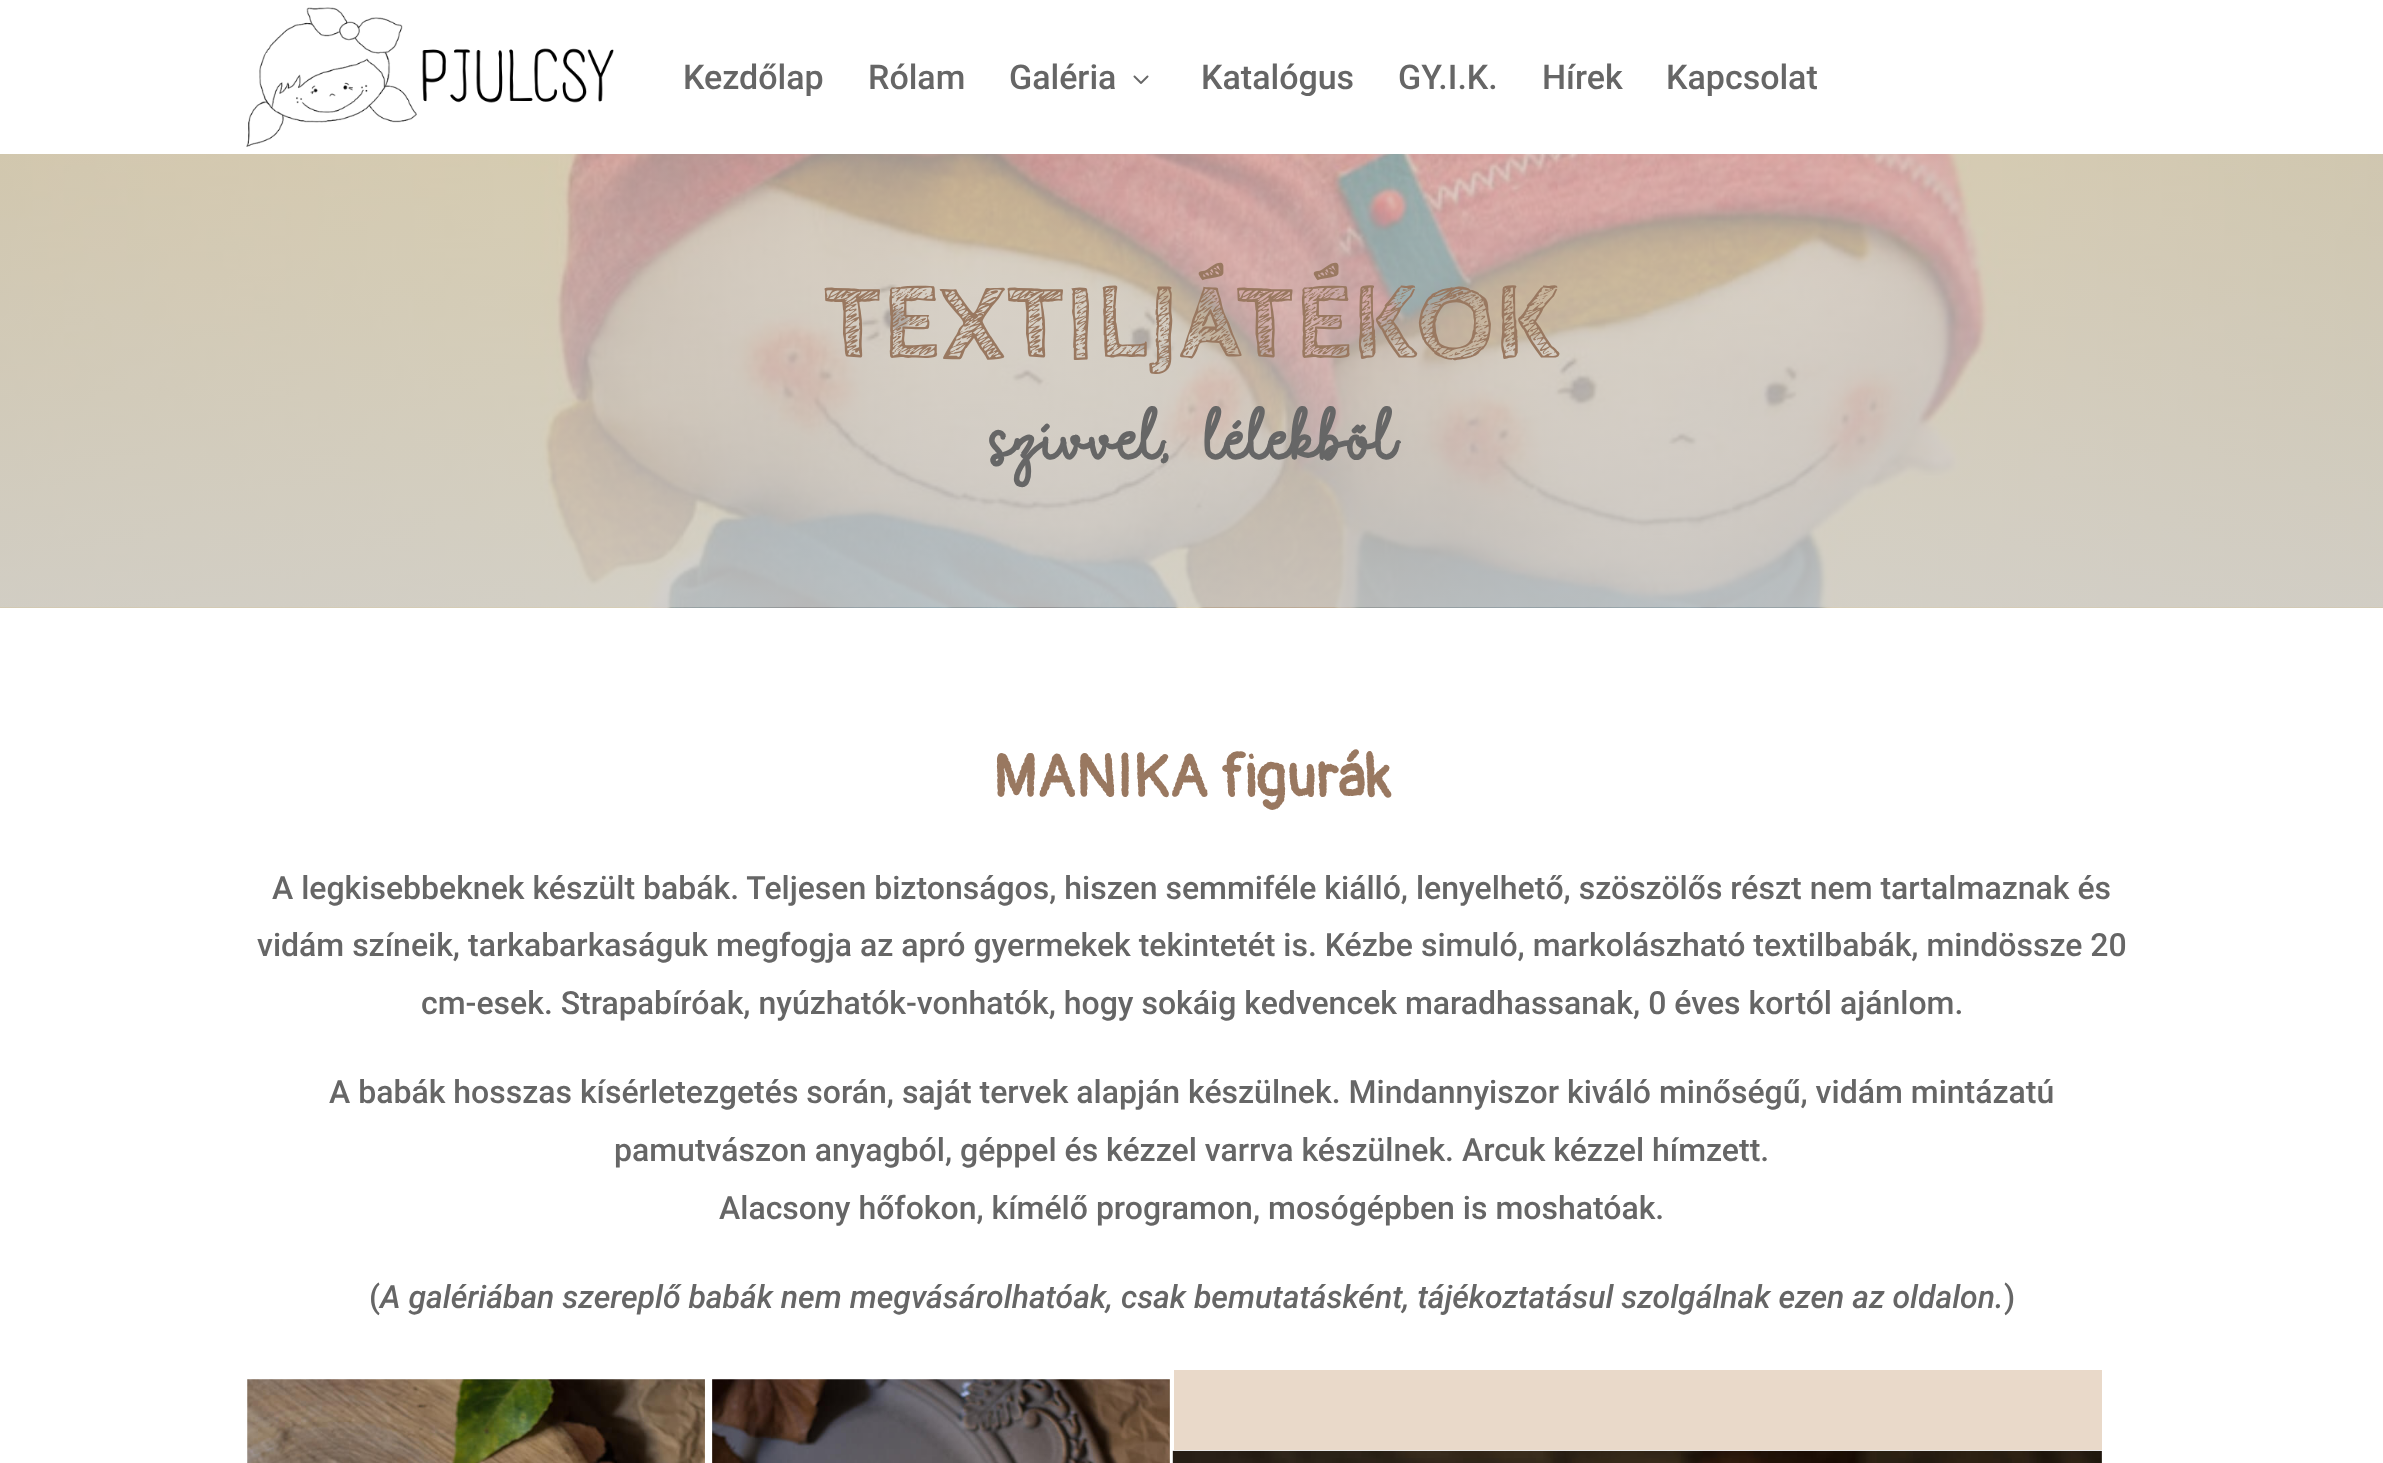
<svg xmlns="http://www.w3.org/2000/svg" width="2383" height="1463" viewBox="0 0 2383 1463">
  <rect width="100%" height="100%" fill="#fff"/>
  <image x="246" y="7" width="368" height="140" href="img/1.png"/>
  <image x="1133" y="75" width="16" height="9" href="img/2.png"/>
  <image x="0" y="154" width="2383" height="454" href="img/3.png"/>
  <image x="247" y="1379" width="458" height="84" href="img/4.png"/>
  <image x="712" y="1379" width="458" height="84" href="img/5.png"/>
  <path d="M1174 1370h928v80H1174z" fill="#e9d9c9"/>
  <image x="1172" y="1450" width="930" height="13" href="img/6.png"/>
  <g font-family="Roboto" font-size="34" font-weight="500" fill="#666">
    <text x="683" y="89">Kezdőlap</text>
    <text x="868" y="89">Rólam</text>
    <text x="1009" y="89">Galéria</text>
    <text x="1201" y="89">Katalógus</text>
    <text x="1398" y="89">GY.I.K.</text>
    <text x="1542" y="89">Hírek</text>
    <text x="1666" y="89">Kapcsolat</text>
  </g>
  <text x="823" y="357" font-family="Cabin Sketch" font-size="110" font-weight="bold" fill="#997860">TEXTILJÁTÉKOK</text>
  <text x="989" y="467" font-family="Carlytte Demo" font-size="110" font-weight="bold" fill="#666">szívvel, lélekből</text>
  <text x="993" y="797" font-family="Pangolin" font-size="60" font-weight="bold" fill="#997860">MANIKA figurák</text>
  <g font-family="Roboto" font-size="32" font-weight="500" fill="#666">
    <text x="272" y="899">A legkisebbeknek készült babák. Teljesen biztonságos, hiszen semmiféle kiálló, lenyelhető, szöszölős részt nem tartalmaznak és</text>
    <text x="257" y="956">vidám színeik, tarkabarkaságuk megfogja az apró gyermekek tekintetét is. Kézbe simuló, markolászható textilbabák, mindössze 20</text>
    <text x="421" y="1014">cm-esek. Strapabíróak, nyúzhatók-vonhatók, hogy sokáig kedvencek maradhassanak, 0 éves kortól ajánlom.</text>
    <text x="329" y="1103">A babák hosszas kísérletezgetés során, saját tervek alapján készülnek. Mindannyiszor kiváló minőségű, vidám mintázatú</text>
    <text x="614" y="1161">pamutvászon anyagból, géppel és kézzel varrva készülnek. Arcuk kézzel hímzett.</text>
    <text x="719" y="1219">Alacsony hőfokon, kímélő programon, mosógépben is moshatóak.</text>
    <text x="369" y="1308">(</text>
  </g>
  <text x="380" y="1308" font-family="Roboto" font-size="32" font-weight="500" font-style="italic" fill="#666">A galériában szereplő babák nem megvásárolhatóak, csak bemutatásként, tájékoztatásul szolgálnak ezen az oldalon.</text>
  <text x="2004" y="1308" font-family="Roboto" font-size="32" font-weight="500" fill="#666">)</text>
</svg>
